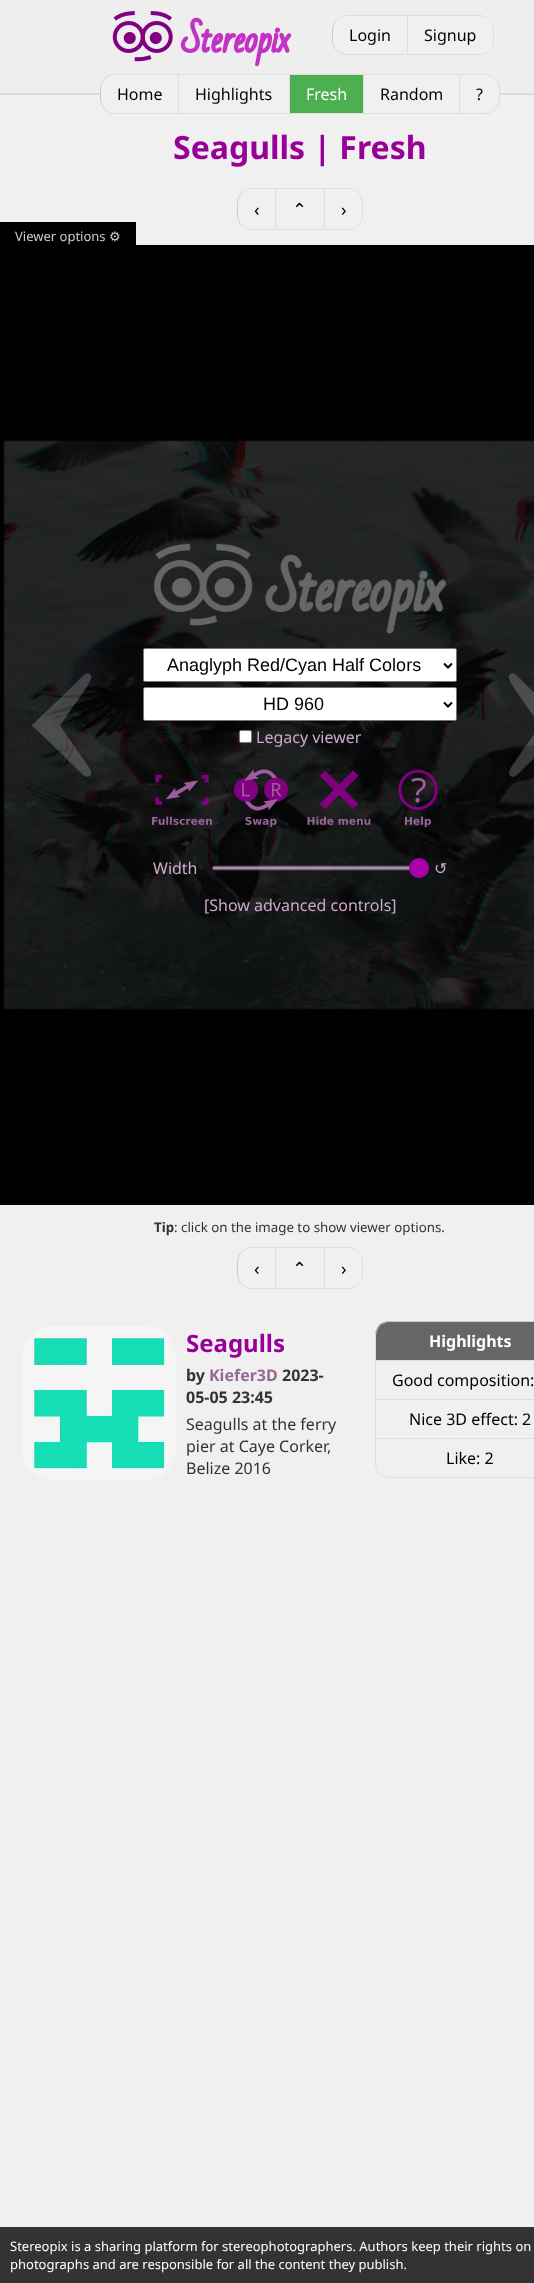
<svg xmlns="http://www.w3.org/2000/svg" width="534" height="2283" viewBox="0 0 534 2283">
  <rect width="100%" height="100%" fill="#f0f0f1"/>
  <path d="M0 0h534v93H0z" fill="#eee"/>
  <path d="M0 93h534v2H0z" fill="#ddd"/>
  <image x="112" y="11" width="180" height="56" href="img/1.png"/>
  <path d="M347 15H408V55H347C338.5 55 332 48.5 332 40V30C332 21.5 338.5 15 347 15Z" fill="#f0f0f1"/>
  <path d="M347 15C343 15 339 17 336 20H337C340 18 343 16 347 16H407L408 15Z" fill="#ddd"/>
  <path d="M408 15L407 16V54L408 55Z" fill="#ddd"/>
  <path d="M408 55L407 54H347C343 54 340 52 337 50H336C339 53 343 55 347 55Z" fill="#ddd"/>
  <path d="M332 30C332 37 331 45 336.5 50.5L337 50C333 46 333 40.5 333 35C333 29.5 333 24 337 20L336.5 19.5C334 22 332 26 332 30Z" fill="#ccc"/>
  <path d="M408 15H479C487.5 15 494 21.5 494 30V40C494 48.5 487.5 55 479 55H408Z" fill="#f0f0f1"/>
  <path d="M408 15H479C487 15 494 22 494 30V40C494 48 487 55 479 55H408ZM408 16H479C487 16 493 22 493 30V40C493 48 487 54 479 54H408Z" fill="#ddd" fill-rule="evenodd"/>
  <path d="M115 74H179V114H115C106.5 114 100 107.5 100 99V89C100 80.5 106.5 74 115 74Z" fill="#f0f0f1"/>
  <path d="M115 74C111 74 107 76 104 78L105 79C108 76 111 75 115 75H178L179 74Z" fill="#ddd"/>
  <path d="M179 74L178 75V113L179 114Z" fill="#ddd"/>
  <path d="M179 114L178 113H115C111 113 108 112 105 109L104 110C107 112 111 114 115 114Z" fill="#ddd"/>
  <path d="M100 89C100 96 99 104 104.5 109.5L105 109C101 105 101 99.5 101 94C101 88.5 101 83 105 79L104.5 78.5C102 81 100 85 100 89Z" fill="#ccc"/>
  <path d="M179 75h110v20H179z" fill="#f0f0f1"/>
  <path d="M179 74h281v1H179z" fill="#ddd"/>
  <path d="M289 74h1v40H289z" fill="#ddd"/>
  <path d="M179 113h111v1H179z" fill="#ddd"/>
  <path d="M290 75h73v38H290z" fill="#4caf50"/>
  <path d="M363 74h1v40H363z" fill="#ddd"/>
  <path d="M290 113h74v1H290z" fill="#ddd"/>
  <path d="M364 75h95v20H364z" fill="#f0f0f1"/>
  <path d="M459 74h1v40H459z" fill="#ddd"/>
  <path d="M364 113h96v1H364z" fill="#ddd"/>
  <path d="M460 74H485C493.5 74 500 80.5 500 89V99C500 107.5 493.5 114 485 114H460Z" fill="#f0f0f1"/>
  <path d="M460 74H485C493 74 500 81 500 89V99C500 107 493 114 485 114H460ZM460 75H485C493 75 499 81 499 89V99C499 107 493 113 485 113H460Z" fill="#ddd" fill-rule="evenodd"/>
  <path d="M276 188h49v1H276z" fill="#ddd"/>
  <path d="M324 188h1v42H324z" fill="#ddd"/>
  <path d="M276 229h49v1H276z" fill="#ddd"/>
  <path d="M252 188C248 188 244 190 241.5 192.5L242 193C244.5 190.5 248 189 252 189H275L276 188Z" fill="#ddd"/>
  <path d="M276 188L275 189V229L276 230Z" fill="#ddd"/>
  <path d="M276 230L275 229H252C248 229 244.5 227.5 242 225L241.5 225.5C244 228 248 230 252 230Z" fill="#ddd"/>
  <path d="M237 203C237 210.5 235.5 219.5 241.5 225.5L242 225C237.5 220.5 238 215 238 209C238 203 237.5 197.5 242 193L241.5 192.5C239 195 237 199 237 203Z" fill="#ccc"/>
  <path d="M325 188H348C356 188 363 195 363 203V215C363 223 356 230 348 230H325ZM325 189H348C356 189 362 195 362 203V215C362 223 356 229 348 229H325Z" fill="#ddd" fill-rule="evenodd"/>
  <path d="M0 245h534v960H0z" fill="#000"/>
  <path d="M0 222h136v23H0z" fill="#000"/>
  <image x="2" y="437" width="532" height="574" href="img/2.png"/>
  <image x="32" y="673" width="60" height="104" href="img/3.png"/>
  <image x="153" y="543" width="294" height="91" href="img/4.png"/>
  <rect x="143.5" y="648.5" width="313" height="33" rx="1.5" fill="#fff" stroke="#767676"/>
  <path d="M444 663.5L448 667.5L452 663.5" fill="none" stroke="#000" stroke-width="2"/>
  <rect x="143.5" y="687.5" width="313" height="33" rx="1.5" fill="#fff" stroke="#767676"/>
  <path d="M444 702.5L448 706.5L452 702.5" fill="none" stroke="#000" stroke-width="2"/>
  <rect x="239.5" y="730.5" width="12" height="12" rx="1.5" fill="#fff" stroke="#767676"/>
  <image x="152" y="774" width="60" height="51" href="img/5.png"/>
  <image x="234" y="769" width="54" height="58" href="img/6.png"/>
  <image x="307" y="770" width="64" height="55" href="img/7.png"/>
  <image x="398" y="769" width="40" height="58" href="img/8.png"/>
  <circle cx="419" cy="868" r="10" fill="#a0a"/>
  <image x="508" y="673" width="26" height="104" href="img/9.png"/>
  <path d="M276 1247h49v1H276z" fill="#ddd"/>
  <path d="M324 1247h1v42H324z" fill="#ddd"/>
  <path d="M276 1288h49v1H276z" fill="#ddd"/>
  <path d="M252 1247C248 1247 244 1249 241.5 1251.5L242 1252C244.5 1249.5 248 1248 252 1248H275L276 1247Z" fill="#ddd"/>
  <path d="M276 1247L275 1248V1288L276 1289Z" fill="#ddd"/>
  <path d="M276 1289L275 1288H252C248 1288 244.5 1286.5 242 1284L241.5 1284.5C244 1287 248 1289 252 1289Z" fill="#ddd"/>
  <path d="M237 1262C237 1269.5 235.5 1278.5 241.5 1284.5L242 1284C237.5 1279.5 238 1274 238 1268C238 1262 237.5 1256.5 242 1252L241.5 1251.5C239 1254 237 1258 237 1262Z" fill="#ccc"/>
  <path d="M325 1247H348C356 1247 363 1254 363 1262V1274C363 1282 356 1289 348 1289H325ZM325 1248H348C356 1248 362 1254 362 1262V1274C362 1282 356 1288 348 1288H325Z" fill="#ddd" fill-rule="evenodd"/>
  <rect x="23" y="1327" width="152" height="152" rx="30" fill="none" stroke="#f5f5f5" stroke-width="2"/>
  <image x="24" y="1328" width="150" height="150" href="img/10.png"/>
  <path d="M390 1321H534C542.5 1321 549 1327.5 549 1336V1361H375V1336C375 1327.5 381.5 1321 390 1321Z" fill="#666"/>
  <path d="M390 1321C386 1321 382 1323 380 1326C382 1324 386 1322 390 1322H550C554 1322 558 1324 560 1326C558 1323 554 1321 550 1321Z" fill="#ccc"/>
  <path d="M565 1361L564 1360H376L375 1361Z" fill="#ddd"/>
  <path d="M375 1361L376 1360V1336C376 1332 377.5 1328.5 380 1326L379.5 1325.5C377 1328 375 1332 375 1336Z" fill="#ddd"/>
  <path d="M375 1399h159v1H375z" fill="#ddd"/>
  <path d="M375 1361h1v39H375z" fill="#ddd"/>
  <path d="M375 1438h159v1H375z" fill="#ddd"/>
  <path d="M375 1400h1v39H375z" fill="#ddd"/>
  <path d="M375 1439H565V1463C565 1471 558 1478 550 1478H390C382 1478 375 1471 375 1463ZM376 1439H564V1463C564 1471 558 1477 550 1477H390C382 1477 376 1471 376 1463Z" fill="#ddd" fill-rule="evenodd"/>
  <path d="M0 2227h534v56H0z" fill="#333"/>
  <g font-family="Noto Sans" font-size="16" fill="#000">
    <text x="349" y="41">Login</text>
    <text x="424" y="41">Signup</text>
    <text x="117" y="100">Home</text>
    <text x="195" y="100">Highlights</text>
  </g>
  <text x="306" y="100" font-family="Noto Sans" font-size="16" fill="#fff">Fresh</text>
  <g font-family="Noto Sans" font-size="16" fill="#000">
    <text x="380" y="100">Random</text>
    <text x="476" y="100">?</text>
  </g>
  <text x="173" y="159" font-family="Noto Sans" font-size="32" font-weight="bold" fill="#909">Seagulls | Fresh</text>
  <text x="292" y="216" font-family="DejaVu Sans" font-size="18" fill="#000">⌃</text>
  <g font-family="Noto Sans" font-size="18" fill="#000">
    <text x="254" y="216">‹</text>
    <text x="341" y="216">›</text>
  </g>
  <text x="15" y="241" font-family="Noto Sans" font-size="13" fill="#ccc">Viewer options</text>
  <text x="109" y="241" font-family="DejaVu Sans" font-size="13" fill="#ccc">⚙</text>
  <g font-family="Liberation Sans" font-size="18" fill="#000">
    <text x="167" y="671">Anaglyph Red/Cyan Half Colors</text>
    <text x="263" y="710">HD 960</text>
  </g>
  <g font-family="Noto Sans" font-size="16" fill="#cac">
    <text x="256" y="743">Legacy viewer</text>
    <text x="153" y="874">Width</text>
  </g>
  <text x="434" y="874" font-family="DejaVu Sans" font-size="16" fill="#cac">↺</text>
  <text x="204" y="911" font-family="Noto Sans" font-size="16" fill="#cac">[Show advanced controls]</text>
  <text x="154" y="1232" font-family="Noto Sans" font-size="13.3" font-weight="bold" fill="#333">Tip</text>
  <text x="174" y="1232" font-family="Noto Sans" font-size="13.3" fill="#333">: click on the image to show viewer options.</text>
  <text x="292" y="1275" font-family="DejaVu Sans" font-size="18" fill="#000">⌃</text>
  <g font-family="Noto Sans" font-size="18" fill="#000">
    <text x="254" y="1275">‹</text>
    <text x="341" y="1275">›</text>
  </g>
  <text x="186" y="1352" font-family="Noto Sans" font-size="24" font-weight="bold" fill="#909">Seagulls</text>
  <text x="186" y="1381" font-family="Noto Sans" font-size="16" font-weight="bold" fill="#333">by</text>
  <text x="209" y="1381" font-family="Noto Sans" font-size="16" font-weight="bold" fill="#969">Kiefer3D</text>
  <g font-family="Noto Sans" font-size="16" font-weight="bold" fill="#333">
    <text x="282" y="1381">2023-</text>
    <text x="186" y="1403">05-05 23:45</text>
  </g>
  <g font-family="Noto Sans" font-size="16" fill="#333">
    <text x="186" y="1430">Seagulls at the ferry</text>
    <text x="186" y="1452">pier at Caye Corker,</text>
    <text x="186" y="1474">Belize 2016</text>
  </g>
  <text x="429" y="1347" font-family="Noto Sans" font-size="16" font-weight="bold" fill="#fff">Highlights</text>
  <g font-family="Noto Sans" font-size="16" fill="#000">
    <text x="392" y="1386">Good composition:</text>
    <text x="409" y="1425">Nice 3D effect: 2</text>
    <text x="446" y="1464">Like: 2</text>
  </g>
  <g font-family="Noto Sans" font-size="13" fill="#fff">
    <text x="10" y="2251">Stereopix is a sharing platform for stereophotographers. Authors keep their rights on</text>
    <text x="10" y="2269">photographs and are responsible for all the content they publish.</text>
  </g>
</svg>
